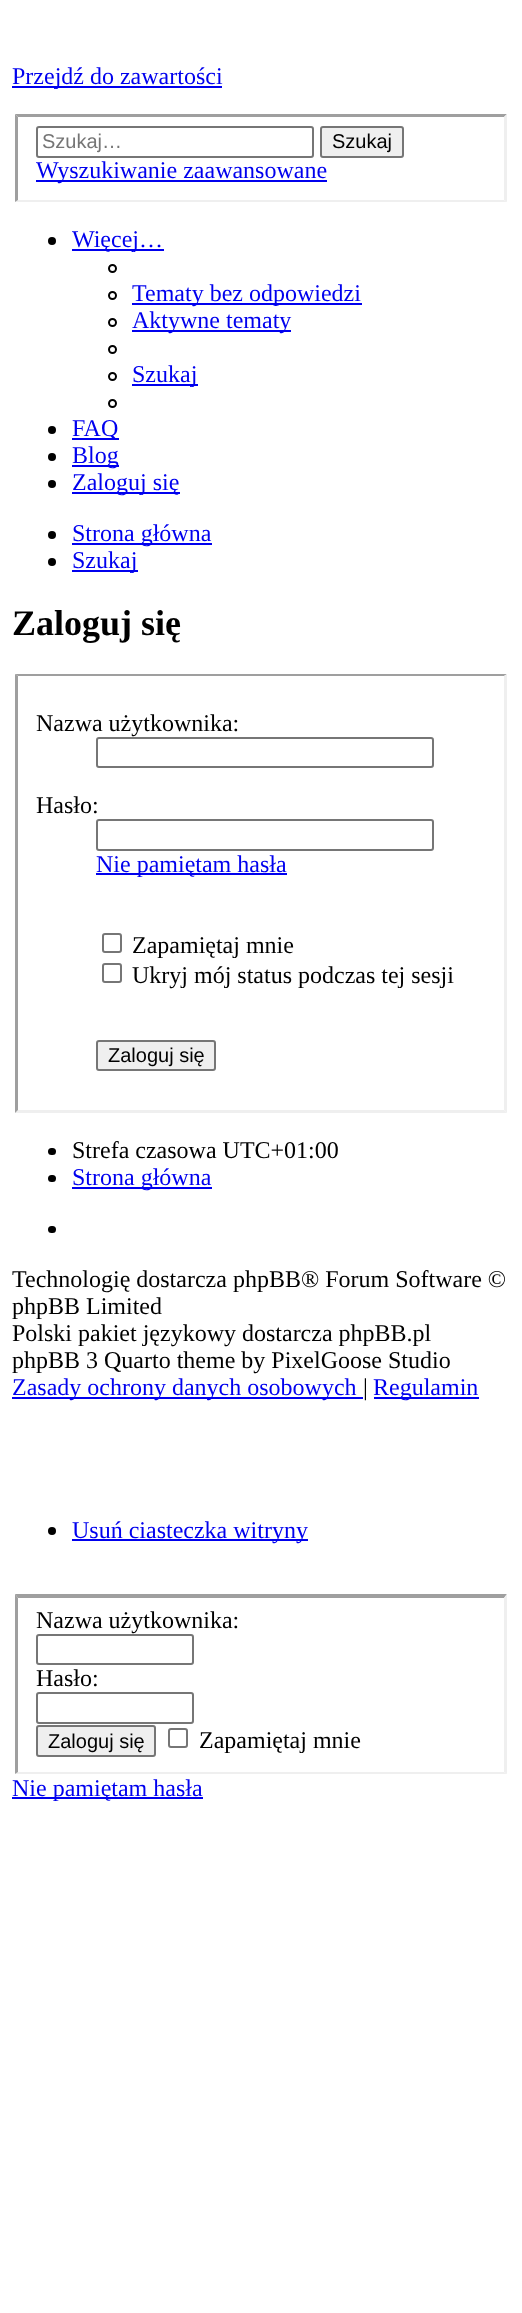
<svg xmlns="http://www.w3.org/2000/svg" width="522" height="2313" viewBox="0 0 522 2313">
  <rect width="100%" height="100%" fill="#fff"/>
  <path d="M12 86h210v2H12z" fill="#00e"/>
  <path d="M15 114H507L504 117H18Z" fill="#9f9f9f"/>
  <path d="M507 114V202L504 200V117Z" fill="#efefef"/>
  <path d="M507 202H15L18 200H504Z" fill="#efefef"/>
  <path d="M15 202V114L18 117V200Z" fill="#9f9f9f"/>
  <rect x="37" y="127" width="276" height="30" rx="2" fill="none" stroke="#767676" stroke-width="2"/>
  <rect x="321" y="127" width="82" height="30" rx="2" fill="#efefef" stroke="#767676" stroke-width="2"/>
  <path d="M36 180h291v2H36z" fill="#00e"/>
  <circle cx="52" cy="241" r="4" fill="#000"/>
  <path d="M72 249h92v2H72z" fill="#00e"/>
  <circle cx="112.5" cy="268.5" r="3.5" fill="none" stroke="#000" stroke-width="2"/>
  <circle cx="112.5" cy="295.5" r="3.5" fill="none" stroke="#000" stroke-width="2"/>
  <path d="M132 303h230v2H132z" fill="#00e"/>
  <circle cx="112.5" cy="322.5" r="3.5" fill="none" stroke="#000" stroke-width="2"/>
  <path d="M132 330h159v2H132z" fill="#00e"/>
  <circle cx="112.5" cy="349.5" r="3.5" fill="none" stroke="#000" stroke-width="2"/>
  <circle cx="112.5" cy="376.5" r="3.5" fill="none" stroke="#000" stroke-width="2"/>
  <path d="M132 384h66v2H132z" fill="#00e"/>
  <circle cx="112.5" cy="403.5" r="3.5" fill="none" stroke="#000" stroke-width="2"/>
  <circle cx="52" cy="430" r="4" fill="#000"/>
  <path d="M72 438h47v2H72z" fill="#00e"/>
  <circle cx="52" cy="457" r="4" fill="#000"/>
  <path d="M72 465h47v2H72z" fill="#00e"/>
  <circle cx="52" cy="484" r="4" fill="#000"/>
  <path d="M72 492h108v2H72z" fill="#00e"/>
  <circle cx="52" cy="535" r="4" fill="#000"/>
  <path d="M72 543h140v2H72z" fill="#00e"/>
  <circle cx="52" cy="562" r="4" fill="#000"/>
  <path d="M72 570h66v2H72z" fill="#00e"/>
  <path d="M15 674H507L504 676H18Z" fill="#9f9f9f"/>
  <path d="M507 674V1113L504 1110V676Z" fill="#efefef"/>
  <path d="M507 1113H15L18 1110H504Z" fill="#efefef"/>
  <path d="M15 1113V674L18 676V1110Z" fill="#9f9f9f"/>
  <rect x="97" y="738" width="336" height="29" rx="2" fill="none" stroke="#767676" stroke-width="2"/>
  <rect x="97" y="820" width="336" height="30" rx="2" fill="none" stroke="#767676" stroke-width="2"/>
  <path d="M96 873h191v2H96z" fill="#00e"/>
  <rect x="103" y="934" width="18" height="18" rx="2" fill="none" stroke="#767676" stroke-width="2"/>
  <rect x="103" y="964" width="18" height="18" rx="2" fill="none" stroke="#767676" stroke-width="2"/>
  <rect x="97" y="1041" width="118" height="29" rx="2" fill="#efefef" stroke="#767676" stroke-width="2"/>
  <rect x="48" y="1148" width="8" height="7" rx="3.5" fill="#000"/>
  <rect x="48" y="1175" width="8" height="7" rx="3.5" fill="#000"/>
  <path d="M72 1187h140v2H72z" fill="#00e"/>
  <rect x="48" y="1226" width="8" height="7" rx="3.5" fill="#000"/>
  <path d="M12 1397h351v2H12z" fill="#00e"/>
  <path d="M374 1397h105v2H374z" fill="#00e"/>
  <circle cx="52" cy="1531" r="4" fill="#000"/>
  <path d="M72 1539h236v2H72z" fill="#00e"/>
  <path d="M15 1594H507L504 1598H18Z" fill="#9f9f9f"/>
  <path d="M507 1594V1774L504 1772V1598Z" fill="#efefef"/>
  <path d="M507 1774H15L18 1772H504Z" fill="#efefef"/>
  <path d="M15 1774V1594L18 1598V1772Z" fill="#9f9f9f"/>
  <rect x="37" y="1635" width="156" height="29" rx="2" fill="none" stroke="#767676" stroke-width="2"/>
  <rect x="37" y="1693" width="156" height="30" rx="2" fill="none" stroke="#767676" stroke-width="2"/>
  <rect x="37" y="1726" width="118" height="30" rx="2" fill="#efefef" stroke="#767676" stroke-width="2"/>
  <rect x="169" y="1729" width="18" height="18" rx="2" fill="none" stroke="#767676" stroke-width="2"/>
  <path d="M12 1797h191v2H12z" fill="#00e"/>
  <text x="12" y="84" font-family="Liberation Serif" font-size="24" fill="#00e">Przejdź do zawartości</text>
  <text x="42" y="148" font-family="Liberation Sans" font-size="20" fill="#757575">Szukaj…</text>
  <text x="332" y="148" font-family="Liberation Sans" font-size="20" fill="#000">Szukaj</text>
  <g font-family="Liberation Serif" font-size="24" fill="#00e">
    <text x="36" y="178">Wyszukiwanie zaawansowane</text>
    <text x="72" y="247">Więcej…</text>
    <text x="132" y="301">Tematy bez odpowiedzi</text>
    <text x="132" y="328">Aktywne tematy</text>
    <text x="132" y="382">Szukaj</text>
    <text x="72" y="436">FAQ</text>
    <text x="72" y="463">Blog</text>
    <text x="72" y="490">Zaloguj się</text>
    <text x="72" y="541">Strona główna</text>
    <text x="72" y="568">Szukaj</text>
  </g>
  <text x="12" y="635" font-family="Liberation Serif" font-size="36" font-weight="bold" fill="#000">Zaloguj się</text>
  <g font-family="Liberation Serif" font-size="24" fill="#000">
    <text x="36" y="731">Nazwa użytkownika:</text>
    <text x="36" y="813">Hasło:</text>
  </g>
  <text x="96" y="872" font-family="Liberation Serif" font-size="24" fill="#00e">Nie pamiętam hasła</text>
  <g font-family="Liberation Serif" font-size="24" fill="#000">
    <text x="132" y="953">Zapamiętaj mnie</text>
    <text x="132" y="983">Ukryj mój status podczas tej sesji</text>
  </g>
  <text x="108" y="1062" font-family="Liberation Sans" font-size="20" fill="#000">Zaloguj się</text>
  <text x="72" y="1158" font-family="Liberation Serif" font-size="24" fill="#000">Strefa czasowa UTC+01:00</text>
  <text x="72" y="1185" font-family="Liberation Serif" font-size="24" fill="#00e">Strona główna</text>
  <g font-family="Liberation Serif" font-size="24" fill="#000">
    <text x="12" y="1287">Technologię dostarcza phpBB® Forum Software ©</text>
    <text x="12" y="1314">phpBB Limited</text>
    <text x="12" y="1341">Polski pakiet językowy dostarcza phpBB.pl</text>
    <text x="12" y="1368">phpBB 3 Quarto theme by PixelGoose Studio</text>
  </g>
  <text x="12" y="1395" font-family="Liberation Serif" font-size="24" fill="#00e">Zasady ochrony danych osobowych</text>
  <text x="363" y="1395" font-family="Liberation Serif" font-size="24" fill="#000">|</text>
  <g font-family="Liberation Serif" font-size="24" fill="#00e">
    <text x="373" y="1395">Regulamin</text>
    <text x="72" y="1538">Usuń ciasteczka witryny</text>
  </g>
  <g font-family="Liberation Serif" font-size="24" fill="#000">
    <text x="36" y="1628">Nazwa użytkownika:</text>
    <text x="36" y="1686">Hasło:</text>
  </g>
  <text x="48" y="1748" font-family="Liberation Sans" font-size="20" fill="#000">Zaloguj się</text>
  <text x="199" y="1748" font-family="Liberation Serif" font-size="24" fill="#000">Zapamiętaj mnie</text>
  <text x="12" y="1796" font-family="Liberation Serif" font-size="24" fill="#00e">Nie pamiętam hasła</text>
</svg>
